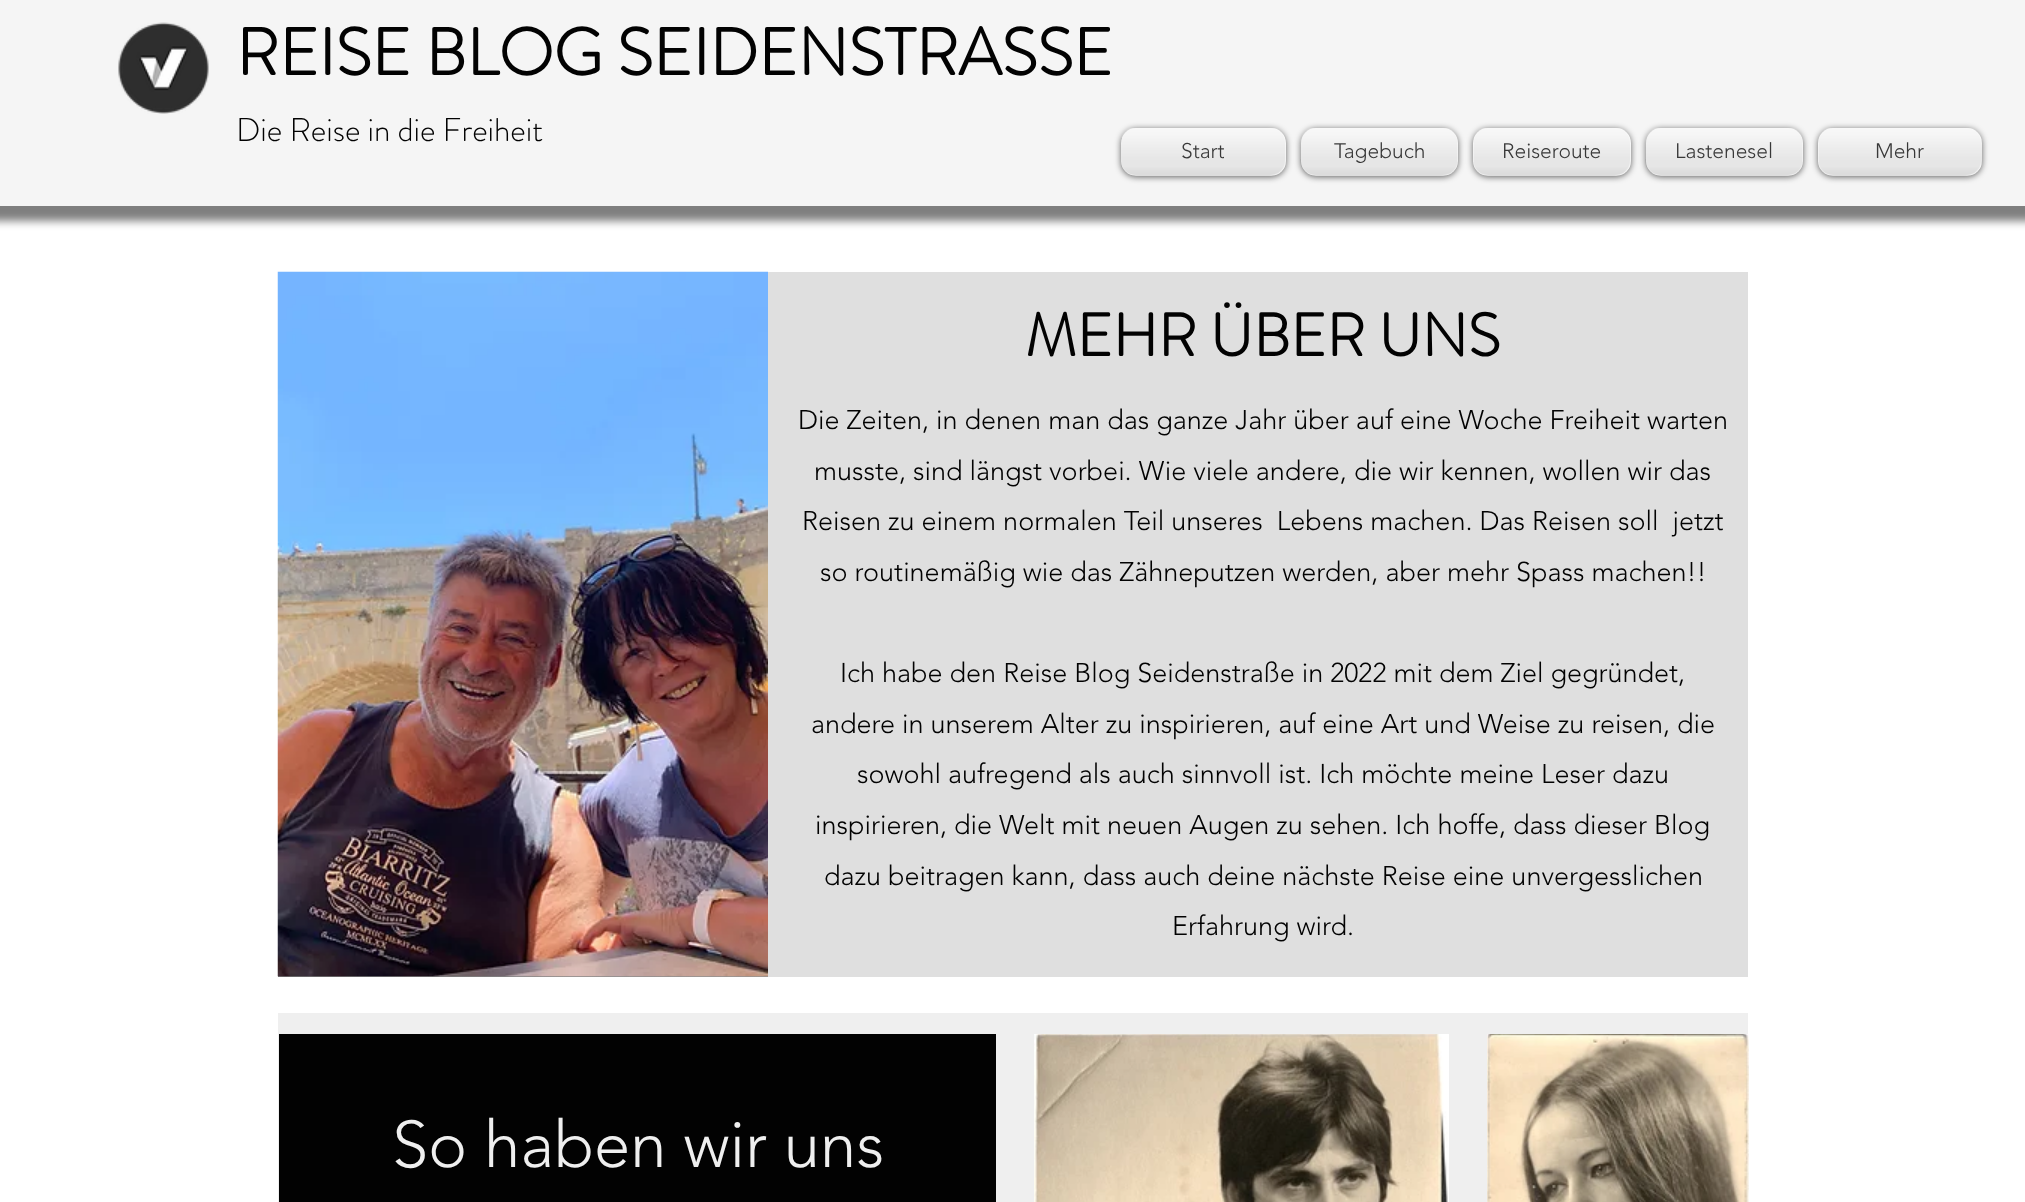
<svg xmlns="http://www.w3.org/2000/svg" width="2025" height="1202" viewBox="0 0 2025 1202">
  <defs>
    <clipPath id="clip1"><path d="M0 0H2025V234H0ZM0 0H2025V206H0Z" clip-rule="evenodd"/></clipPath>
    <linearGradient id="g1" gradientUnits="userSpaceOnUse" x1="278" y1="624" x2="1748" y2="624"><stop offset="0" stop-color="#767676"/><stop offset="1" stop-color="#d1d1d1"/></linearGradient>
  </defs>
  <rect width="100%" height="100%" fill="#fff"/>
  <g clip-path="url(#clip1)">
    <path d="M-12 -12h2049v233H-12z" fill="#00000080" filter="blur(4px)"/>
  </g>
  <path d="M0 0h2025v206H0z" fill="#efefef99"/>
  <image x="118" y="22" width="91" height="92" href="img/1.png"/>
  <rect x="1121" y="129" width="165" height="48" rx="15" fill="#00000099" filter="blur(3px)"/>
  <rect x="1121" y="128" width="165" height="48" rx="15" fill="#fff"/>
  <image x="1121" y="128" width="164" height="10" href="img/2.png"/>
  <image x="1121" y="128" width="165" height="48" href="img/3.png"/>
  <rect x="1301" y="129" width="157" height="48" rx="15" fill="#00000099" filter="blur(3px)"/>
  <rect x="1301" y="128" width="157" height="48" rx="15" fill="#fff"/>
  <image x="1300" y="128" width="158" height="31" href="img/4.png"/>
  <image x="1300" y="128" width="158" height="48" href="img/5.png"/>
  <rect x="1473" y="129" width="158" height="48" rx="15" fill="#00000099" filter="blur(3px)"/>
  <rect x="1473" y="128" width="158" height="48" rx="15" fill="#fff"/>
  <image x="1473" y="128" width="157" height="11" href="img/6.png"/>
  <image x="1473" y="128" width="158" height="48" href="img/7.png"/>
  <rect x="1646" y="129" width="157" height="48" rx="15" fill="#00000099" filter="blur(3px)"/>
  <rect x="1646" y="128" width="157" height="48" rx="15" fill="#fff"/>
  <image x="1645" y="128" width="158" height="31" href="img/4.png"/>
  <image x="1645" y="128" width="158" height="48" href="img/5.png"/>
  <rect x="1818" y="129" width="164" height="48" rx="15" fill="#00000099" filter="blur(3px)"/>
  <rect x="1818" y="128" width="164" height="48" rx="15" fill="#fff"/>
  <image x="1818" y="128" width="164" height="12" href="img/8.png"/>
  <image x="1818" y="128" width="164" height="48" href="img/9.png"/>
  <path d="M278 976h490v1H278z" fill="url(#g1)"/>
  <image x="277" y="271" width="491" height="706" href="img/10.png"/>
  <path d="M768 272h980v705H768z" fill="#dfdfdf"/>
  <path d="M278 1013h1470v189H278z" fill="#efefef"/>
  <path d="M279 1034h717v168H279z" fill="#020202"/>
  <image x="1034" y="1034" width="415" height="168" href="img/11.png"/>
  <image x="1487" y="1034" width="262" height="168" href="img/12.png"/>
  <text x="236" y="75" font-family="'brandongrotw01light'" font-size="66" font-weight="bold" fill="#020202">REISE BLOG SEIDENSTRASSE</text>
  <text x="236" y="141" font-family="'brandongrotw01light'" font-size="33" font-weight="300" fill="#020202">Die Reise in die Freiheit</text>
  <g font-family="'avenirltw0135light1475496'" font-size="21" font-weight="300" fill="#383838">
    <text x="1181" y="158">Start</text>
    <text x="1334" y="158">Tagebuch</text>
    <text x="1502" y="158">Reiseroute</text>
    <text x="1675" y="158">Lastenesel</text>
    <text x="1875" y="158">Mehr</text>
  </g>
  <text x="1025" y="356" font-family="'brandongrotw01light'" font-size="60" font-weight="bold" fill="#020202">MEHR ÜBER UNS</text>
  <g font-family="'avenirltw0135light1475496'" font-size="27" font-weight="300" fill="#020202">
    <text x="798" y="429">Die Zeiten, in denen man das ganze Jahr über auf eine Woche Freiheit warten</text>
    <text x="814" y="480">musste, sind längst vorbei. Wie viele andere, die wir kennen, wollen wir das</text>
    <text x="802" y="530" xml:space="preserve">Reisen zu einem normalen Teil unseres  Lebens machen. Das Reisen soll  jetzt</text>
    <text x="820" y="581">so routinemäßig wie das Zähneputzen werden, aber mehr Spass machen!!</text>
    <text x="840" y="682">Ich habe den Reise Blog Seidenstraße in 2022 mit dem Ziel gegründet,</text>
    <text x="811" y="733">andere in unserem Alter zu inspirieren, auf eine Art und Weise zu reisen, die</text>
    <text x="857" y="783">sowohl aufregend als auch sinnvoll ist. Ich möchte meine Leser dazu</text>
    <text x="815" y="834">inspirieren, die Welt mit neuen Augen zu sehen. Ich hoffe, dass dieser Blog</text>
    <text x="824" y="885">dazu beitragen kann, dass auch deine nächste Reise eine unvergesslichen</text>
    <text x="1172" y="935">Erfahrung wird.</text>
  </g>
  <text x="392" y="1167" font-family="'avenirltw0135light1475496'" font-size="65.25" font-weight="300" fill="#efefef">So haben wir uns</text>
</svg>
